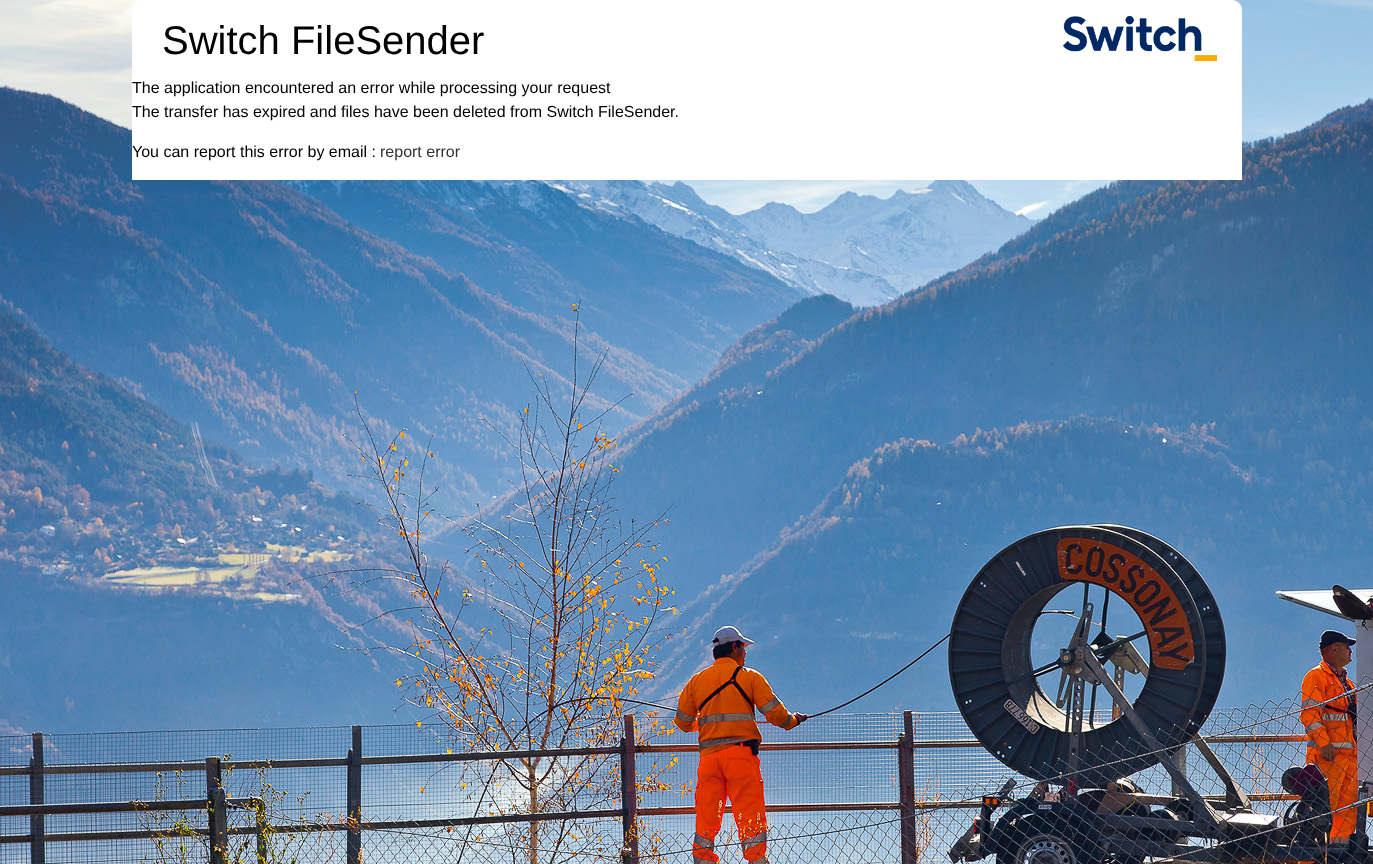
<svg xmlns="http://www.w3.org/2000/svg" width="1373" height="864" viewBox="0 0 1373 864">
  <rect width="100%" height="100%" fill="#fff"/>
  <image x="0" y="0" width="1373" height="864" href="img/1.png"/>
  <path d="M142 0H1232C1237.5 0 1242 4.5 1242 10V180H132V10C132 4.5 136.5 0 142 0Z" fill="#fff"/>
  <image x="1063" y="16" width="154" height="45" href="img/2.png"/>
  <text x="162" y="54" font-family="Liberation Sans" font-size="40" fill="#000">Switch FileSender</text>
  <g font-family="Liberation Sans" font-size="16" fill="#000">
    <text x="132" y="93">The application encountered an error while processing your request</text>
    <text x="132" y="117">The transfer has expired and files have been deleted from Switch FileSender.</text>
    <text x="132" y="157">You can report this error by email :</text>
  </g>
  <text x="380" y="157" font-family="Liberation Sans" font-size="16" fill="#333">report error</text>
</svg>
